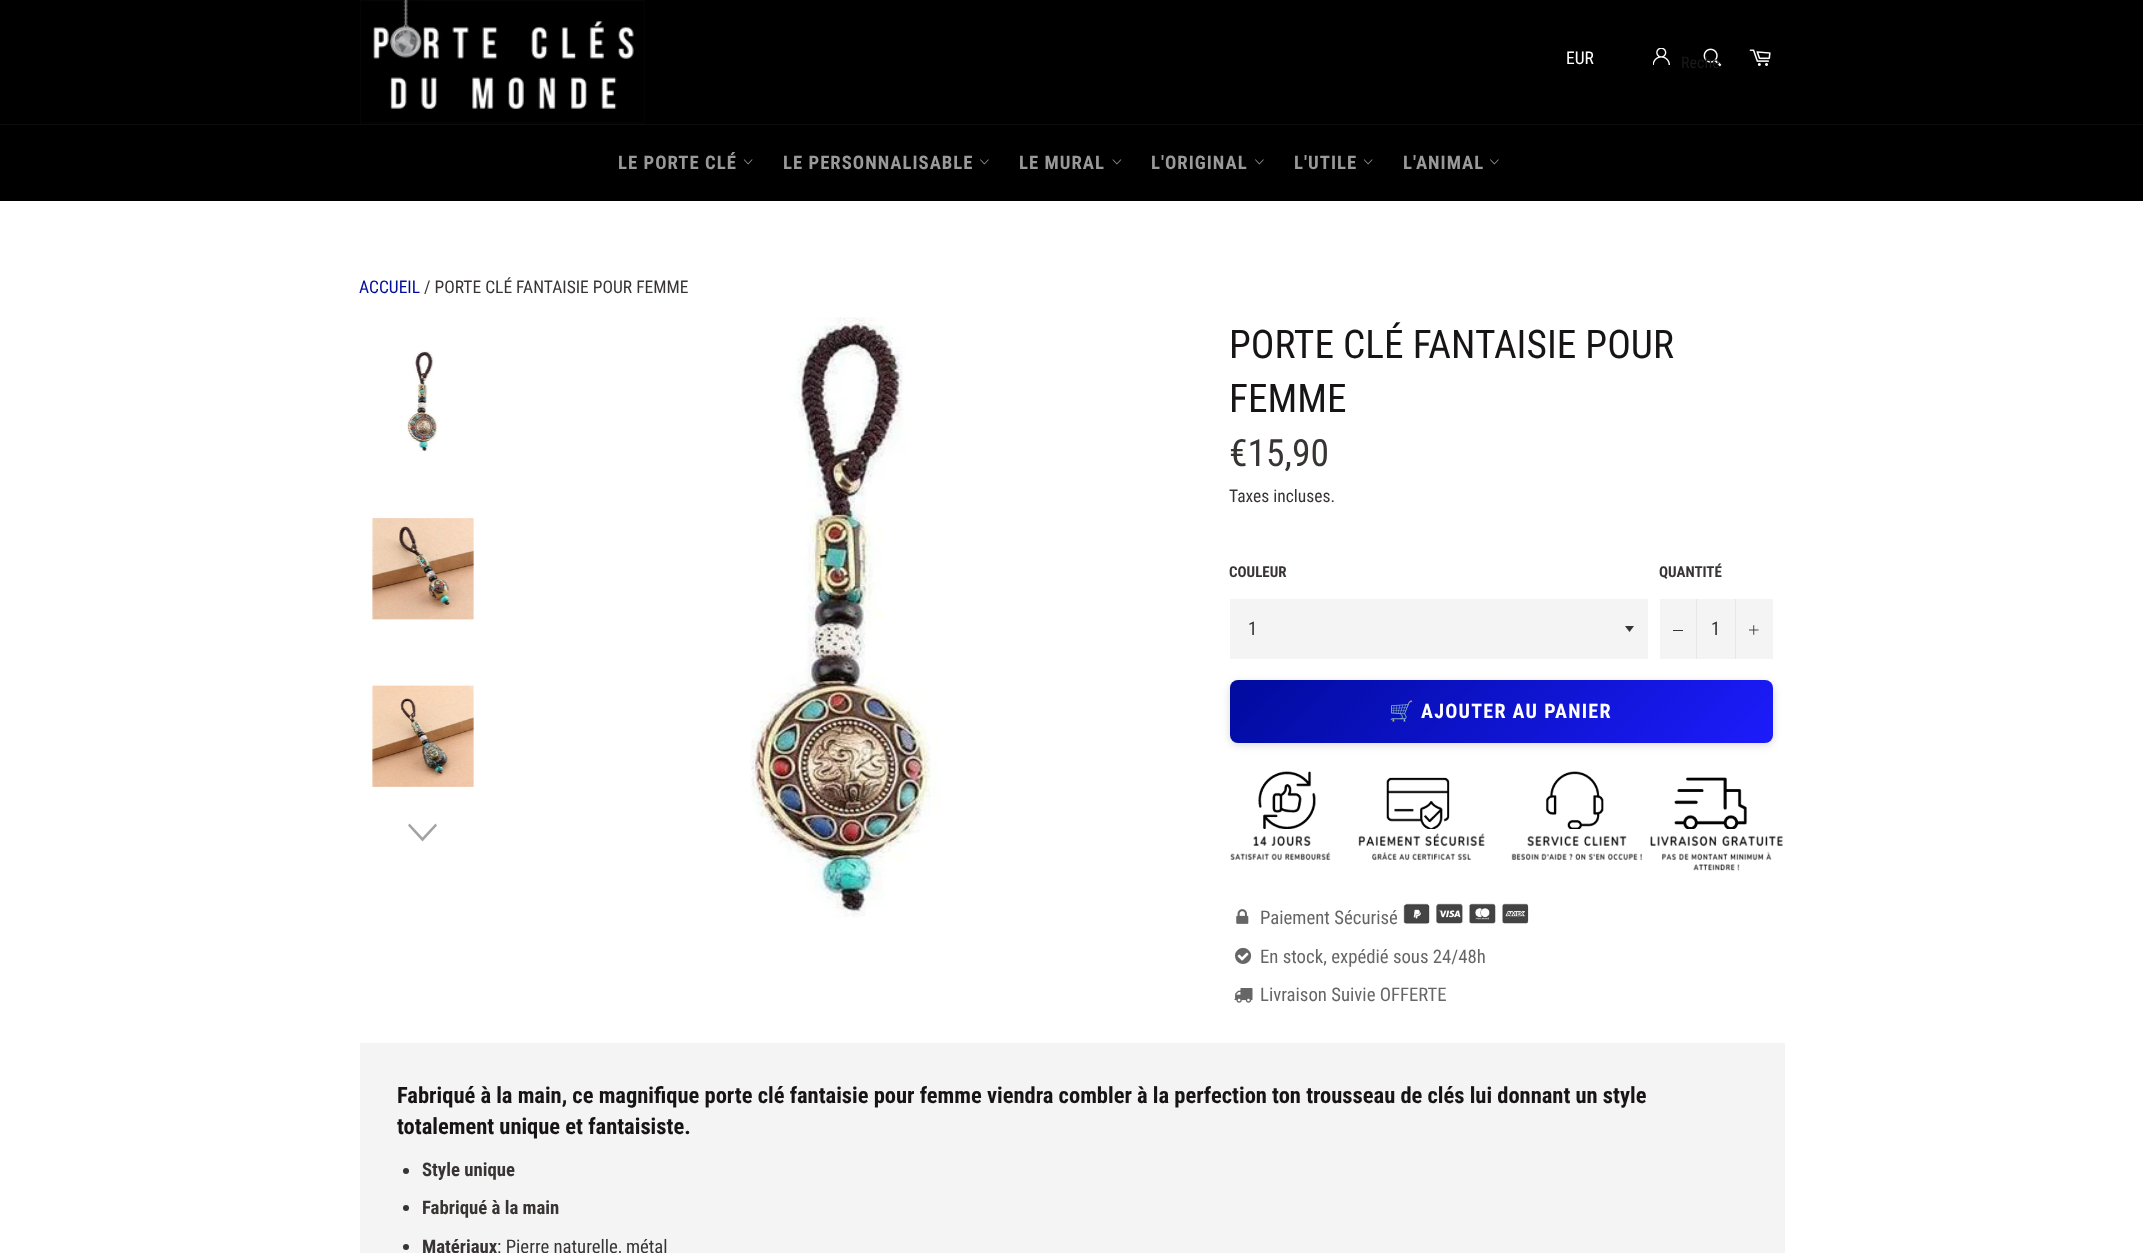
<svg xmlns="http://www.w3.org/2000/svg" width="2143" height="1253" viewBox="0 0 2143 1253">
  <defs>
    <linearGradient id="g1" gradientUnits="userSpaceOnUse" x1="1350" y1="560" x2="1653" y2="863"><stop offset="0" stop-color="#000b9d"/><stop offset="1" stop-color="#1c1cfc"/></linearGradient>
  </defs>
  <rect width="100%" height="100%" fill="#fff"/>
  <path d="M0 0h2143v124H0z" fill="#000"/>
  <image x="360" y="0" width="285" height="124" href="img/1.png"/>
  <image x="1653" y="48" width="17" height="17" href="img/2.png"/>
  <image x="1703" y="48" width="19" height="19" href="img/3.png"/>
  <image x="1749" y="49" width="22" height="17" href="img/4.png"/>
  <path d="M0 125h2143v76H0z" fill="#000"/>
  <path d="M0 124h2143v1H0z" fill="#0d0d0d"/>
  <image x="743" y="159" width="10" height="6" href="img/5.png"/>
  <image x="980" y="159" width="9" height="6" href="img/6.png"/>
  <image x="1112" y="159" width="10" height="6" href="img/7.png"/>
  <image x="1255" y="159" width="9" height="6" href="img/6.png"/>
  <image x="1363" y="159" width="10" height="6" href="img/5.png"/>
  <image x="1490" y="159" width="9" height="6" href="img/6.png"/>
  <image x="407" y="350" width="32" height="102" href="img/8.png"/>
  <image x="372" y="518" width="102" height="102" href="img/9.png"/>
  <image x="372" y="685" width="102" height="102" href="img/10.png"/>
  <path d="M435.5 823.5L437 825.5L422.5 841.5L408 825.5L409.5 823.5L422.5 837.5Z" fill="#a3a3a3"/>
  <image x="750" y="317" width="190" height="601" href="img/11.png"/>
  <path d="M1230 599h418v60H1230z" fill="#f4f4f4"/>
  <path d="M1625 626L1629.5 632L1634 626Z" fill="#383434"/>
  <path d="M1660 599h113v60H1660z" fill="#f4f4f4"/>
  <path d="M1696 599h1v60H1696z" fill="#e7e7e7"/>
  <path d="M1673 630h10v1H1673z" fill="#383434"/>
  <path d="M1735 599h1v60H1735z" fill="#e7e7e7"/>
  <image x="1749" y="625" width="10" height="10" href="img/12.png"/>
  <rect x="1230" y="683" width="543" height="62" rx="8" fill="#00000026" filter="blur(4px)"/>
  <rect x="1230" y="680" width="543" height="63" rx="8" fill="url(#g1)"/>
  <image x="1230" y="771" width="553" height="100" href="img/13.png"/>
  <image x="1236" y="909" width="13" height="15" href="img/14.png"/>
  <image x="1403" y="903" width="126" height="21" href="img/15.png"/>
  <image x="1235" y="947" width="17" height="17" href="img/16.png"/>
  <image x="1234" y="988" width="19" height="15" href="img/17.png"/>
  <path d="M360 1043h1425v210H360z" fill="#f4f4f4"/>
  <circle cx="406" cy="1171" r="3" fill="#383434"/>
  <circle cx="406" cy="1208" r="3" fill="#383434"/>
  <circle cx="406" cy="1247" r="3" fill="#383434"/>
  <text x="1566" y="64" font-family="Roboto Condensed" font-size="17.5" fill="#fff">EUR</text>
  <text x="1681" y="68" font-family="Roboto Condensed" font-size="16" fill="#1a1a1a">Reche</text>
  <g font-family="Roboto Condensed" font-size="18.75" font-weight="bold" letter-spacing="1" fill="#999">
    <text x="618" y="169">LE PORTE CLÉ</text>
    <text x="783" y="169">LE PERSONNALISABLE</text>
    <text x="1019" y="169">LE MURAL</text>
    <text x="1151" y="169">L'ORIGINAL</text>
    <text x="1294" y="169">L'UTILE</text>
    <text x="1403" y="169">L'ANIMAL</text>
  </g>
  <text x="359" y="293" font-family="Roboto Condensed" font-size="17.5" fill="#000b9d">ACCUEIL</text>
  <text x="424" y="293" font-family="Roboto Condensed" font-size="17.5" fill="#383434">/ PORTE CLÉ FANTAISIE POUR FEMME</text>
  <g font-family="Roboto Condensed" font-size="39.4" fill="#161414">
    <text x="1229" y="358">PORTE CLÉ FANTAISIE POUR</text>
    <text x="1229" y="412">FEMME</text>
  </g>
  <text x="1229" y="466" font-family="Roboto Condensed" font-size="37.5" fill="#383434">€15,90</text>
  <text x="1229" y="502" font-family="Roboto Condensed" font-size="17.5" fill="#383434">Taxes incluses.</text>
  <text x="1229" y="577" font-family="Roboto Condensed" font-size="15" font-weight="bold" fill="#383434">COULEUR</text>
  <text x="1248" y="635" font-family="Roboto Condensed" font-size="18.75" fill="#383434">1</text>
  <text x="1659" y="577" font-family="Roboto Condensed" font-size="15" font-weight="bold" fill="#383434">QUANTITÉ</text>
  <text x="1711" y="635" font-family="Roboto Condensed" font-size="18.75" fill="#383434">1</text>
  <text x="1389" y="718" font-family="Noto Color Emoji" font-size="20" font-weight="bold" letter-spacing="1.25" fill="#fff">🛒</text>
  <text x="1421" y="718" font-family="Roboto Condensed" font-size="20" font-weight="bold" letter-spacing="1.25" fill="#fff">AJOUTER AU PANIER</text>
  <g font-family="Roboto Condensed" font-size="18.75" fill="#666">
    <text x="1260" y="924">Paiement Sécurisé</text>
    <text x="1260" y="963">En stock, expédié sous 24/48h</text>
    <text x="1260" y="1001">Livraison Suivie OFFERTE</text>
  </g>
  <g font-family="Roboto Condensed" font-size="22.5" font-weight="bold" fill="#161414">
    <text x="397" y="1103">Fabriqué à la main, ce magnifique porte clé fantaisie pour femme viendra combler à la perfection ton trousseau de clés lui donnant un style</text>
    <text x="397" y="1134">totalement unique et fantaisiste.</text>
  </g>
  <g font-family="Roboto Condensed" font-size="18.75" font-weight="bold" fill="#383434">
    <text x="422" y="1176">Style unique</text>
    <text x="422" y="1214">Fabriqué à la main</text>
    <text x="422" y="1253">Matériaux</text>
  </g>
  <text x="497" y="1253" font-family="Roboto Condensed" font-size="18.75" fill="#383434">: Pierre naturelle, métal</text>
</svg>
